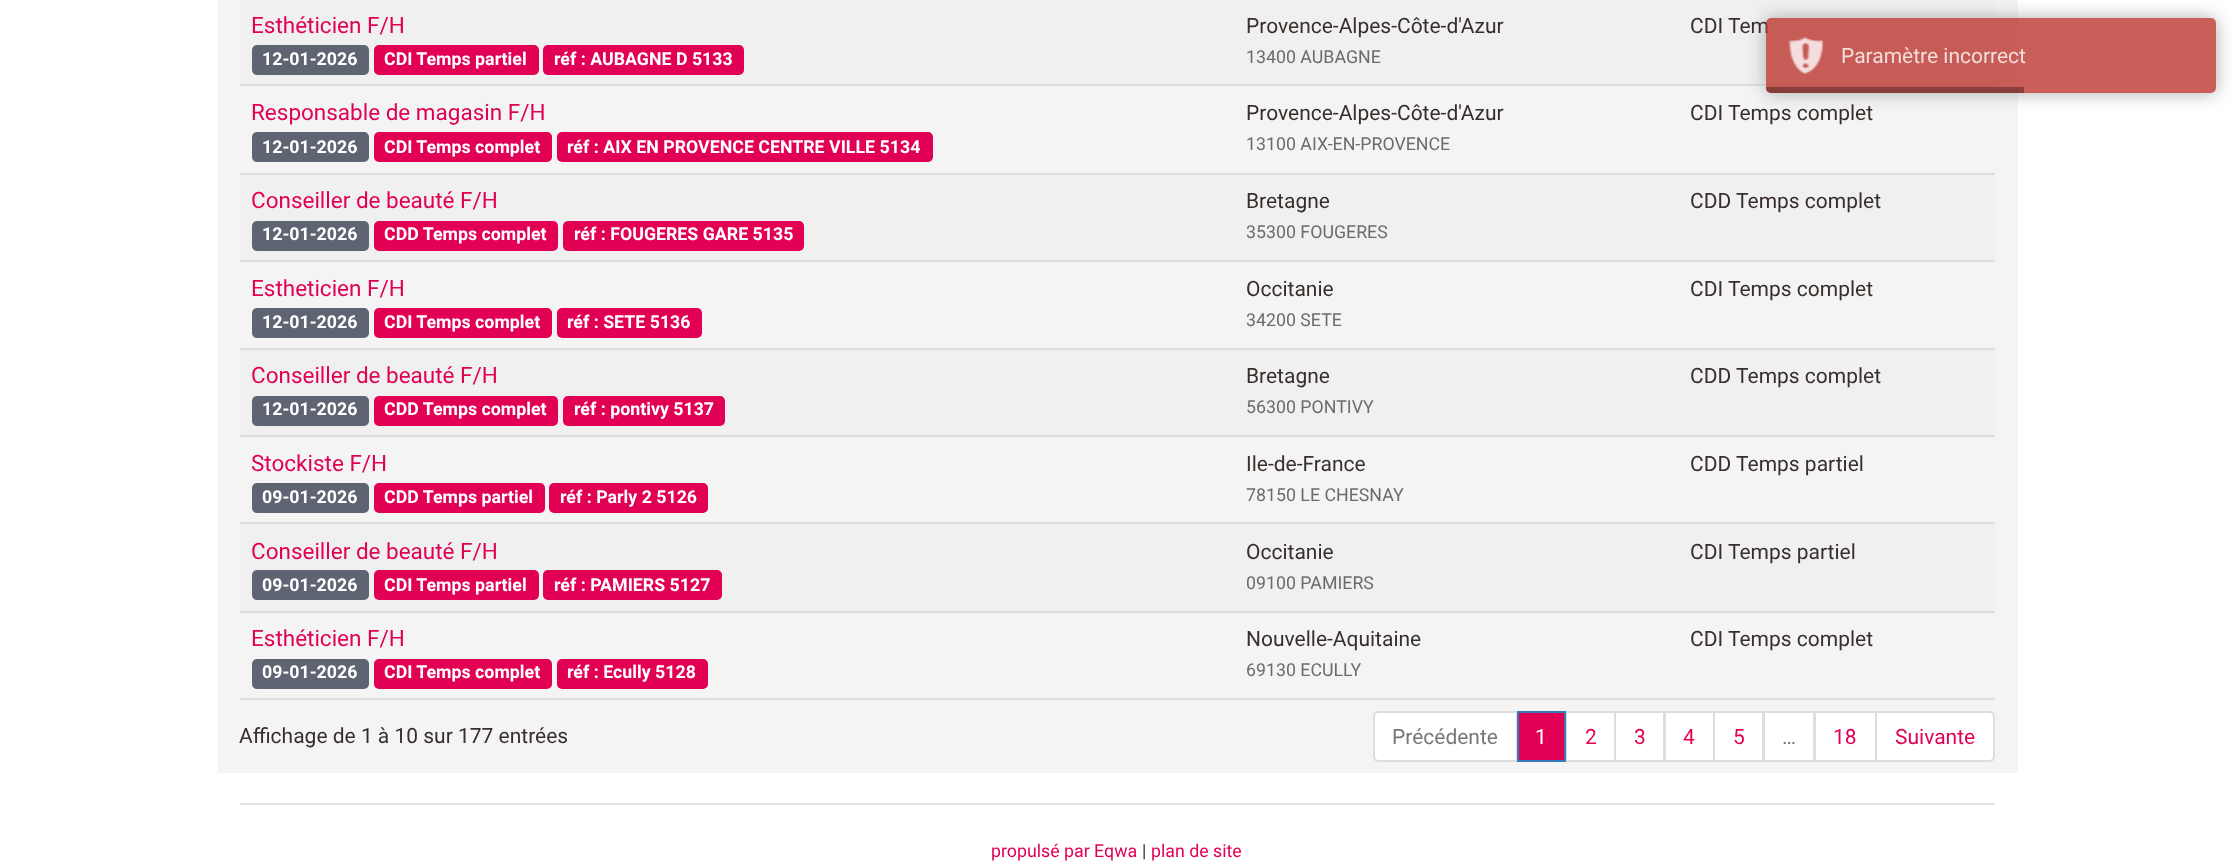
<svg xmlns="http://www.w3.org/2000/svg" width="2233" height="864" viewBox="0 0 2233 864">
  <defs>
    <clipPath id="clip1"><path d="M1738 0H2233V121H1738ZM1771 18H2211C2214 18 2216 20 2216 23V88C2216 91 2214 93 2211 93H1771C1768 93 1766 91 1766 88V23C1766 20 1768 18 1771 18Z" clip-rule="evenodd"/></clipPath>
  </defs>
  <rect width="100%" height="100%" fill="#fff"/>
  <path d="M218 0h1800v773H218z" fill="#f4f4f4"/>
  <path d="M240 698h1755v2H240z" fill="#ddd"/>
  <path d="M240 0h1755v84H240z" fill="#f0f0f0"/>
  <rect x="252" y="45" width="117" height="30" rx="5" fill="#5e6472"/>
  <rect x="374" y="45" width="165" height="30" rx="5" fill="#e10054"/>
  <rect x="543" y="45" width="201" height="30" rx="5" fill="#e10054"/>
  <path d="M240 84h1755v2H240z" fill="#ddd"/>
  <rect x="252" y="132" width="117" height="30" rx="5" fill="#5e6472"/>
  <rect x="374" y="132" width="178" height="30" rx="5" fill="#e10054"/>
  <rect x="557" y="132" width="376" height="30" rx="5" fill="#e10054"/>
  <path d="M240 175h1755v85H240z" fill="#f0f0f0"/>
  <path d="M240 173h1755v2H240z" fill="#ddd"/>
  <rect x="252" y="221" width="117" height="30" rx="5" fill="#5e6472"/>
  <rect x="374" y="221" width="184" height="30" rx="5" fill="#e10054"/>
  <rect x="563" y="221" width="241" height="30" rx="5" fill="#e10054"/>
  <path d="M240 260h1755v2H240z" fill="#ddd"/>
  <rect x="252" y="308" width="117" height="30" rx="5" fill="#5e6472"/>
  <rect x="374" y="308" width="178" height="30" rx="5" fill="#e10054"/>
  <rect x="557" y="308" width="145" height="30" rx="5" fill="#e10054"/>
  <path d="M240 350h1755v85H240z" fill="#f0f0f0"/>
  <path d="M240 348h1755v2H240z" fill="#ddd"/>
  <rect x="252" y="396" width="117" height="30" rx="5" fill="#5e6472"/>
  <rect x="374" y="396" width="184" height="30" rx="5" fill="#e10054"/>
  <rect x="563" y="396" width="162" height="30" rx="5" fill="#e10054"/>
  <path d="M240 435h1755v2H240z" fill="#ddd"/>
  <rect x="252" y="483" width="117" height="30" rx="5" fill="#5e6472"/>
  <rect x="374" y="483" width="171" height="30" rx="5" fill="#e10054"/>
  <rect x="549" y="483" width="159" height="30" rx="5" fill="#e10054"/>
  <path d="M240 524h1755v87H240z" fill="#f0f0f0"/>
  <path d="M240 522h1755v2H240z" fill="#ddd"/>
  <rect x="252" y="570" width="117" height="30" rx="5" fill="#5e6472"/>
  <rect x="374" y="570" width="165" height="30" rx="5" fill="#e10054"/>
  <rect x="543" y="570" width="179" height="30" rx="5" fill="#e10054"/>
  <path d="M240 611h1755v2H240z" fill="#ddd"/>
  <rect x="252" y="659" width="117" height="30" rx="5" fill="#5e6472"/>
  <rect x="374" y="659" width="178" height="30" rx="5" fill="#e10054"/>
  <rect x="557" y="659" width="151" height="30" rx="5" fill="#e10054"/>
  <path d="M1379 712H1517V761H1379C1376 761 1374 759 1374 756V717C1374 714 1376 712 1379 712Z" fill="#fff" stroke="#ddd" stroke-width="2"/>
  <path d="M1566 712h49v49H1566z" fill="#fff" stroke="#ddd" stroke-width="2"/>
  <path d="M1518 712h47v49H1518z" fill="#e10054" stroke="#337ab7" stroke-width="2"/>
  <path d="M1615 712h49v49H1615z" fill="#fff" stroke="#ddd" stroke-width="2"/>
  <path d="M1665 712h49v49H1665z" fill="#fff" stroke="#ddd" stroke-width="2"/>
  <path d="M1714 712h49v49H1714z" fill="#fff" stroke="#ddd" stroke-width="2"/>
  <path d="M1764 712h50v49H1764z" fill="#fff" stroke="#ddd" stroke-width="2"/>
  <path d="M1815 712h61v49H1815z" fill="#fff" stroke="#ddd" stroke-width="2"/>
  <path d="M1876 712H1989C1992 712 1994 714 1994 717V756C1994 759 1992 761 1989 761H1876Z" fill="#fff" stroke="#ddd" stroke-width="2"/>
  <path d="M240 803h1755v2H240z" fill="#e5e5e5"/>
  <g clip-path="url(#clip1)">
    <rect x="1766" y="18" width="450" height="75" rx="5" fill="#999999cc" filter="blur(9px)"/>
  </g>
  <text x="251" y="33" font-family="Roboto" font-size="22.5" fill="#e10054">Esthéticien F/H</text>
  <g font-family="Roboto" font-size="17.8" font-weight="bold" fill="#fff">
    <text x="262" y="65">12-01-2026</text>
    <text x="384" y="65">CDI Temps partiel</text>
    <text x="554" y="65">réf : AUBAGNE D 5133</text>
  </g>
  <text x="1246" y="33" font-family="Roboto" font-size="21" fill="#382f2d">Provence-Alpes-Côte-d'Azur</text>
  <text x="1246" y="63" font-family="Roboto" font-size="17.8" fill="#6b6b6b">13400 AUBAGNE</text>
  <text x="1690" y="33" font-family="Roboto" font-size="21" fill="#382f2d">CDI Tem</text>
  <text x="251" y="120" font-family="Roboto" font-size="22.5" fill="#e10054">Responsable de magasin F/H</text>
  <g font-family="Roboto" font-size="17.8" font-weight="bold" fill="#fff">
    <text x="262" y="153">12-01-2026</text>
    <text x="384" y="153">CDI Temps complet</text>
    <text x="567" y="153">réf : AIX EN PROVENCE CENTRE VILLE 5134</text>
  </g>
  <text x="1246" y="120" font-family="Roboto" font-size="21" fill="#382f2d">Provence-Alpes-Côte-d'Azur</text>
  <text x="1246" y="150" font-family="Roboto" font-size="17.8" fill="#6b6b6b">13100 AIX-EN-PROVENCE</text>
  <text x="1690" y="120" font-family="Roboto" font-size="21" fill="#382f2d">CDI Temps complet</text>
  <text x="251" y="208" font-family="Roboto" font-size="22.5" fill="#e10054">Conseiller de beauté F/H</text>
  <g font-family="Roboto" font-size="17.8" font-weight="bold" fill="#fff">
    <text x="262" y="240">12-01-2026</text>
    <text x="384" y="240">CDD Temps complet</text>
    <text x="574" y="240">réf : FOUGERES GARE 5135</text>
  </g>
  <text x="1246" y="208" font-family="Roboto" font-size="21" fill="#382f2d">Bretagne</text>
  <text x="1246" y="238" font-family="Roboto" font-size="17.8" fill="#6b6b6b">35300 FOUGERES</text>
  <text x="1690" y="208" font-family="Roboto" font-size="21" fill="#382f2d">CDD Temps complet</text>
  <text x="251" y="296" font-family="Roboto" font-size="22.5" fill="#e10054">Estheticien F/H</text>
  <g font-family="Roboto" font-size="17.8" font-weight="bold" fill="#fff">
    <text x="262" y="328">12-01-2026</text>
    <text x="384" y="328">CDI Temps complet</text>
    <text x="567" y="328">réf : SETE 5136</text>
  </g>
  <text x="1246" y="296" font-family="Roboto" font-size="21" fill="#382f2d">Occitanie</text>
  <text x="1246" y="326" font-family="Roboto" font-size="17.8" fill="#6b6b6b">34200 SETE</text>
  <text x="1690" y="296" font-family="Roboto" font-size="21" fill="#382f2d">CDI Temps complet</text>
  <text x="251" y="383" font-family="Roboto" font-size="22.5" fill="#e10054">Conseiller de beauté F/H</text>
  <g font-family="Roboto" font-size="17.8" font-weight="bold" fill="#fff">
    <text x="262" y="415">12-01-2026</text>
    <text x="384" y="415">CDD Temps complet</text>
    <text x="574" y="415">réf : pontivy 5137</text>
  </g>
  <text x="1246" y="383" font-family="Roboto" font-size="21" fill="#382f2d">Bretagne</text>
  <text x="1246" y="413" font-family="Roboto" font-size="17.8" fill="#6b6b6b">56300 PONTIVY</text>
  <text x="1690" y="383" font-family="Roboto" font-size="21" fill="#382f2d">CDD Temps complet</text>
  <text x="251" y="471" font-family="Roboto" font-size="22.5" fill="#e10054">Stockiste F/H</text>
  <g font-family="Roboto" font-size="17.8" font-weight="bold" fill="#fff">
    <text x="262" y="503">09-01-2026</text>
    <text x="384" y="503">CDD Temps partiel</text>
    <text x="560" y="503">réf : Parly 2 5126</text>
  </g>
  <text x="1246" y="471" font-family="Roboto" font-size="21" fill="#382f2d">Ile-de-France</text>
  <text x="1246" y="501" font-family="Roboto" font-size="17.8" fill="#6b6b6b">78150 LE CHESNAY</text>
  <text x="1690" y="471" font-family="Roboto" font-size="21" fill="#382f2d">CDD Temps partiel</text>
  <text x="251" y="559" font-family="Roboto" font-size="22.5" fill="#e10054">Conseiller de beauté F/H</text>
  <g font-family="Roboto" font-size="17.8" font-weight="bold" fill="#fff">
    <text x="262" y="591">09-01-2026</text>
    <text x="384" y="591">CDI Temps partiel</text>
    <text x="554" y="591">réf : PAMIERS 5127</text>
  </g>
  <text x="1246" y="559" font-family="Roboto" font-size="21" fill="#382f2d">Occitanie</text>
  <text x="1246" y="589" font-family="Roboto" font-size="17.8" fill="#6b6b6b">09100 PAMIERS</text>
  <text x="1690" y="559" font-family="Roboto" font-size="21" fill="#382f2d">CDI Temps partiel</text>
  <text x="251" y="646" font-family="Roboto" font-size="22.5" fill="#e10054">Esthéticien F/H</text>
  <g font-family="Roboto" font-size="17.8" font-weight="bold" fill="#fff">
    <text x="262" y="678">09-01-2026</text>
    <text x="384" y="678">CDI Temps complet</text>
    <text x="567" y="678">réf : Ecully 5128</text>
  </g>
  <text x="1246" y="646" font-family="Roboto" font-size="21" fill="#382f2d">Nouvelle-Aquitaine</text>
  <text x="1246" y="676" font-family="Roboto" font-size="17.8" fill="#6b6b6b">69130 ECULLY</text>
  <g font-family="Roboto" font-size="21" fill="#382f2d">
    <text x="1690" y="646">CDI Temps complet</text>
    <text x="239" y="743">Affichage de 1 à 10 sur 177 entrées</text>
  </g>
  <text x="1392" y="744" font-family="Roboto" font-size="21" fill="#777">Précédente</text>
  <text x="1535" y="744" font-family="Roboto" font-size="21" fill="#fff">1</text>
  <g font-family="Roboto" font-size="21" fill="#e10054">
    <text x="1585" y="744">2</text>
    <text x="1634" y="744">3</text>
    <text x="1683" y="744">4</text>
    <text x="1733" y="744">5</text>
  </g>
  <text x="1782" y="744" font-family="Roboto" font-size="21" fill="#777">…</text>
  <g font-family="Roboto" font-size="21" fill="#e10054">
    <text x="1833" y="744">18</text>
    <text x="1895" y="744">Suivante</text>
  </g>
  <text x="991" y="857" font-family="Roboto" font-size="17.8" fill="#e10054">propulsé par Eqwa</text>
  <text x="1142" y="857" font-family="Roboto" font-size="17.8" fill="#382f2d">|</text>
  <text x="1151" y="857" font-family="Roboto" font-size="17.8" fill="#e10054">plan de site</text>
  <rect x="1766" y="18" width="450" height="75" rx="5" fill="#bd362fcc"/>
  <image x="1788" y="37" width="36" height="37" href="img/1.png"/>
  <text x="1841" y="63" font-family="Roboto" font-size="21" fill="#f4dedd">Paramètre incorrect</text>
  <path d="M1766 87H2024V93H1771C1768 93 1766 91 1766 88Z" fill="#00000052"/>
</svg>
